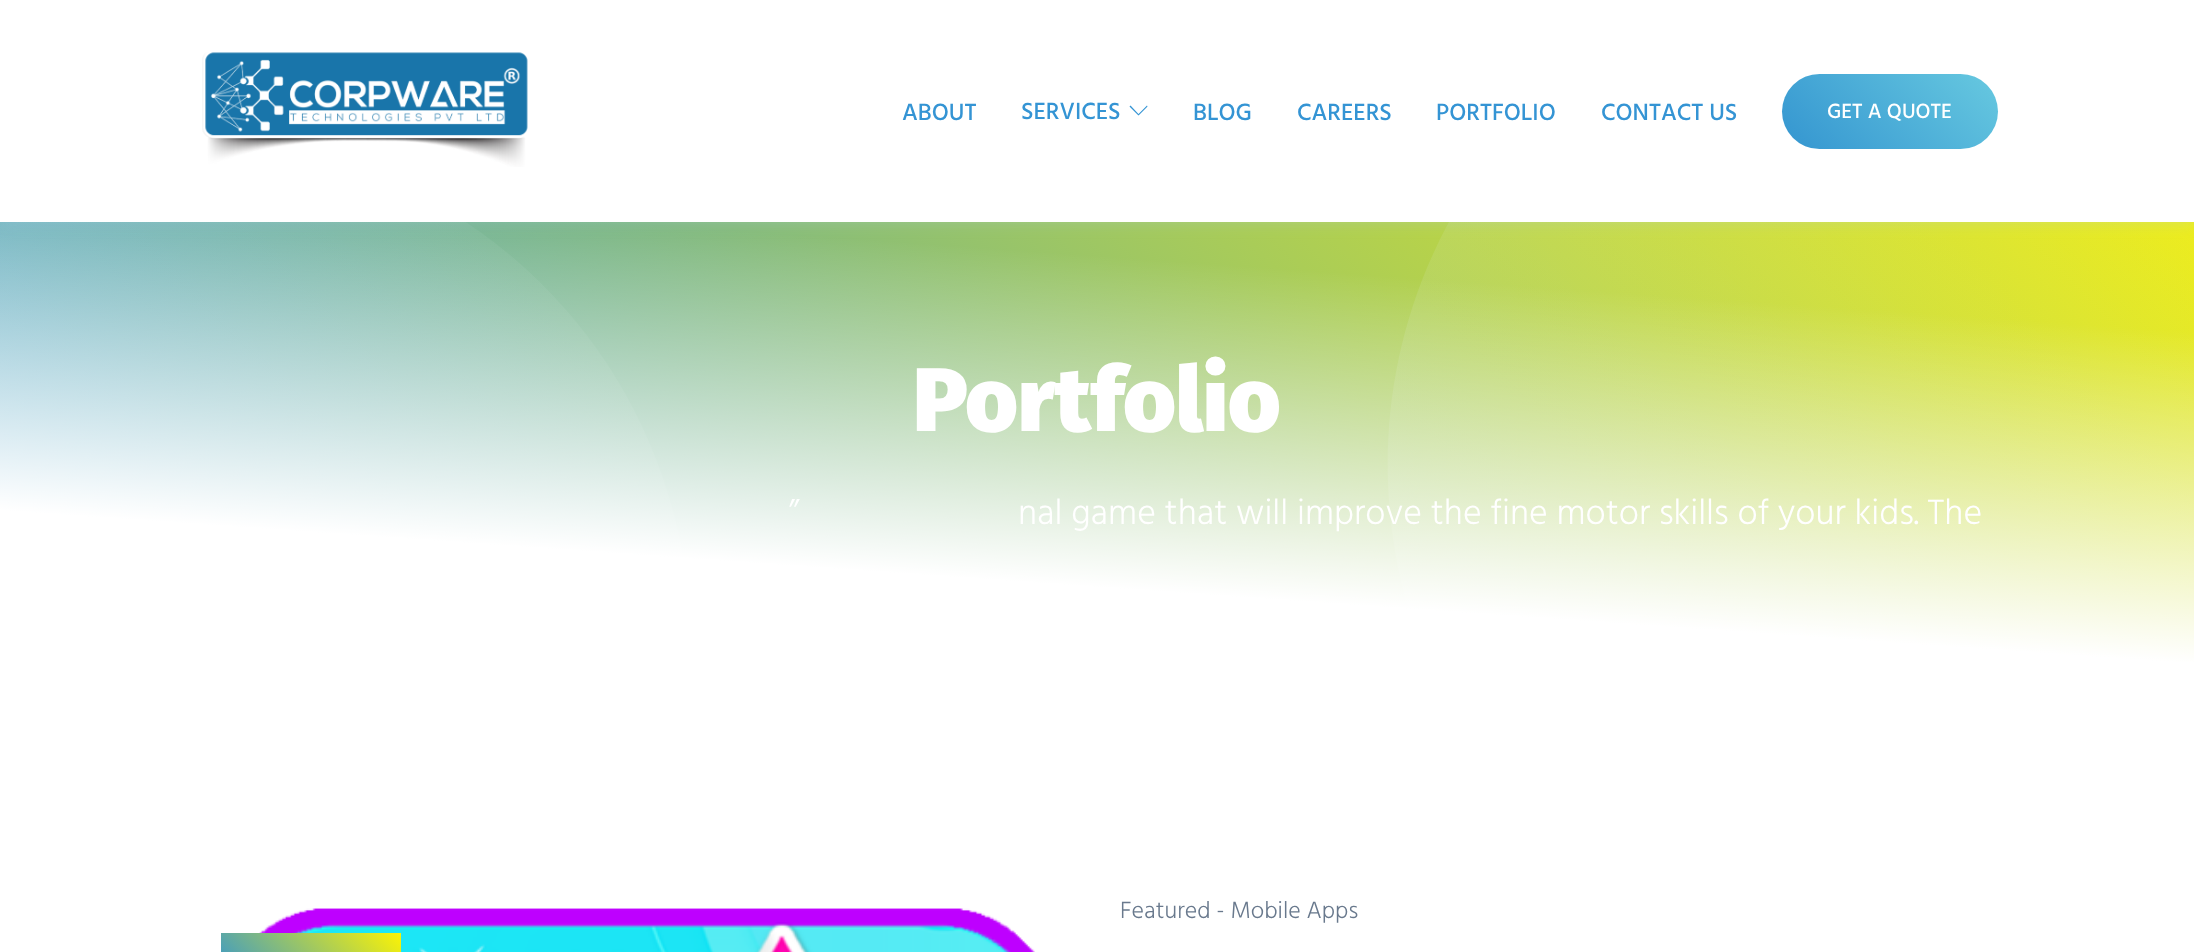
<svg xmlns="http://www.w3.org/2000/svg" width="2194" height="952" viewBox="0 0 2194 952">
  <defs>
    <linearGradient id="g1" gradientUnits="userSpaceOnUse" x1="382" y1="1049" x2="1813" y2="-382"><stop offset="0" stop-color="#3495cf"/><stop offset="1" stop-color="#fcf304"/></linearGradient>
    <linearGradient id="g2" gradientUnits="userSpaceOnUse" x1="1721" y1="626" x2="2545" y2="-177"><stop offset="0" stop-color="#edf7ff" stop-opacity="0.1"/><stop offset="1" stop-color="#edf7ff" stop-opacity="0"/></linearGradient>
    <linearGradient id="g3" gradientUnits="userSpaceOnUse" x1="-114" y1="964" x2="711" y2="161"><stop offset="0" stop-color="#edf7ff" stop-opacity="0.3"/><stop offset="1" stop-color="#edf7ff" stop-opacity="0"/></linearGradient>
    <linearGradient id="g4" gradientUnits="userSpaceOnUse" x1="1136" y1="-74" x2="1059" y2="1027"><stop offset="0.3" stop-color="#fff" stop-opacity="0"/><stop offset="0.6" stop-color="#fff"/></linearGradient>
    <linearGradient id="g5" gradientUnits="userSpaceOnUse" x1="1817" y1="184" x2="1963" y2="38"><stop offset="0" stop-color="#3495d0"/><stop offset="1" stop-color="#67c9e0"/></linearGradient>
    <linearGradient id="g6" gradientUnits="userSpaceOnUse" x1="254" y1="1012" x2="367" y2="899"><stop offset="0" stop-color="#3495cf"/><stop offset="1" stop-color="#fcf304"/></linearGradient>
  </defs>
  <rect width="100%" height="100%" fill="#fff"/>
  <path d="M0 222h2194v440H0z" fill="url(#g1)"/>
  <path d="M1658-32L1515 128C1332 334 1348 653 1552 839C1756 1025 2071 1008 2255 802L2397 642C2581 435 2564 117 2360-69C2156-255 1841-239 1658-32Z" fill="url(#g2)" fill-rule="evenodd"/>
  <path d="M-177 306L-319 466C-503 672-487 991-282 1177C-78 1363 236 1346 420 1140L562 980C746 773 730 455 526 269C321 83 7 99-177 306Z" fill="url(#g3)" fill-rule="evenodd"/>
  <path d="M0 222h2194v730H0z" fill="url(#g4)"/>
  <path d="M0 0h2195v222H0z" fill="#a6d1ed4d" filter="blur(7.5px)"/>
  <path d="M0 0h2194v222H0z" fill="#fff"/>
  <image x="202" y="52" width="326" height="115" href="img/1.png"/>
  <path d="M1147.5 106.5L1138.5 115.5L1129.5 106.5L1130.5 105.5L1138.5 114L1147 105.5Z" fill="#3494d4"/>
  <rect x="1782" y="74" width="216" height="75" rx="37.5" fill="url(#g5)"/>
  <image x="259" y="908" width="776" height="44" href="img/2.png"/>
  <path d="M221 933h180v19H221z" fill="url(#g6)"/>
  <g font-family="Hind Vadodara" font-size="24" font-weight="500" fill="#3494d4">
    <text x="902" y="120">ABOUT</text>
    <text x="1021" y="119">SERVICES</text>
    <text x="1193" y="120">BLOG</text>
    <text x="1297" y="120">CAREERS</text>
    <text x="1436" y="120">PORTFOLIO</text>
    <text x="1601" y="120">CONTACT US</text>
  </g>
  <text x="1827" y="118" font-family="Hind Vadodara" font-size="21" font-weight="500" fill="#fff">GET A QUOTE</text>
  <text x="913" y="431" font-family="Fira Sans" font-size="90" font-weight="900" fill="#fff">Portfolio</text>
  <g font-family="Hind Vadodara" font-size="36" font-weight="300" fill="#fff">
    <text x="789" y="524">”</text>
    <text x="1018" y="524">nal game that will improve the fine motor skills of your kids. The</text>
  </g>
  <text x="1120" y="918" font-family="Hind Vadodara" font-size="24" font-weight="300" fill="#69798d">Featured - Mobile Apps</text>
</svg>
